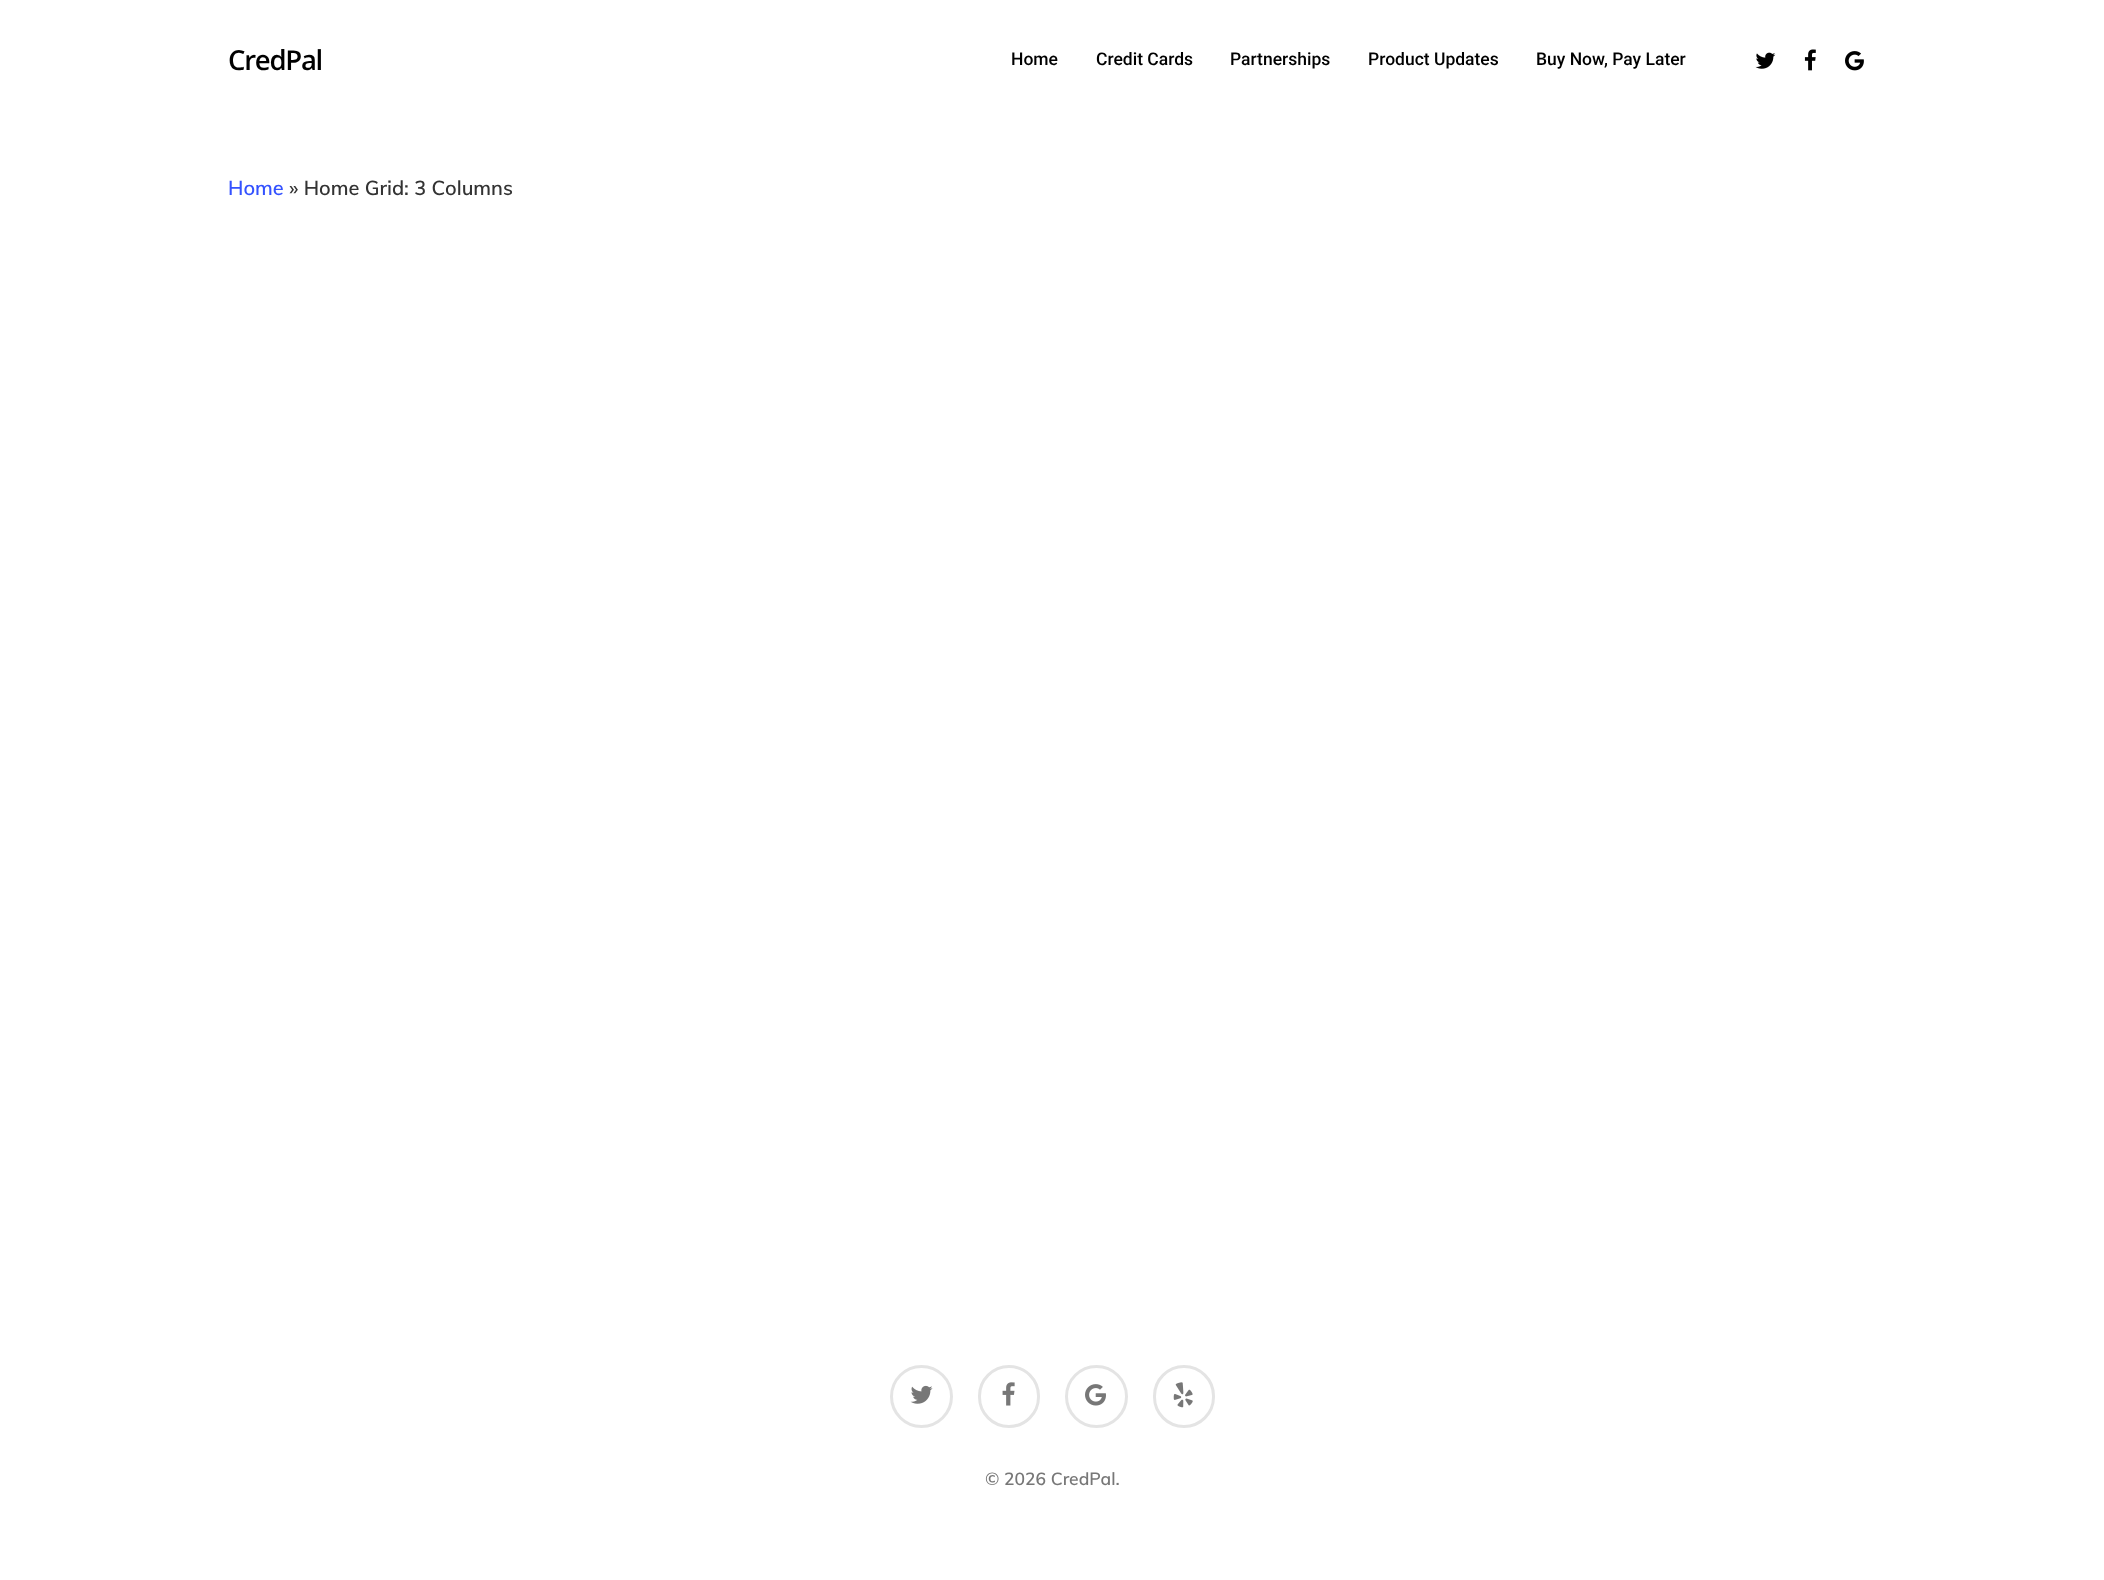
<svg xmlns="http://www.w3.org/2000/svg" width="2104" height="1580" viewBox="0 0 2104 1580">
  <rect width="100%" height="100%" fill="#fff"/>
  <image x="1755" y="52" width="21" height="17" href="img/1.png"/>
  <image x="1804" y="49" width="12" height="22" href="img/2.png"/>
  <image x="1845" y="51" width="19" height="20" href="img/3.png"/>
  <image x="910" y="1385" width="23" height="19" href="img/4.png"/>
  <circle cx="921.5" cy="1396.5" r="30" fill="none" stroke="#e4e4e4" stroke-width="3"/>
  <image x="1002" y="1382" width="13" height="24" href="img/5.png"/>
  <rect x="979.5" y="1366.5" width="59" height="60" rx="29.5" fill="none" stroke="#e4e4e4" stroke-width="3"/>
  <image x="1085" y="1384" width="21" height="22" href="img/6.png"/>
  <circle cx="1096.5" cy="1396.5" r="30" fill="none" stroke="#e4e4e4" stroke-width="3"/>
  <image x="1173" y="1382" width="20" height="26" href="img/7.png"/>
  <rect x="1154.5" y="1366.5" width="59" height="60" rx="29.5" fill="none" stroke="#e4e4e4" stroke-width="3"/>
  <text x="228" y="70" font-family="Open Sans" font-size="27.5" font-weight="600" letter-spacing="-1.25" fill="#000">CredPal</text>
  <g font-family="Roboto" font-size="17.5" font-weight="500" fill="#000">
    <text x="1011" y="65">Home</text>
    <text x="1096" y="65">Credit Cards</text>
    <text x="1230" y="65">Partnerships</text>
    <text x="1368" y="65">Product Updates</text>
    <text x="1536" y="65">Buy Now, Pay Later</text>
  </g>
  <text x="228" y="195" font-family="Muli" font-size="20" font-weight="600" fill="#3452ff">Home</text>
  <text x="289" y="195" font-family="Muli" font-size="20" font-weight="600" fill="#333">» Home Grid: 3 Columns</text>
  <text x="985" y="1485" font-family="Muli" font-size="17.5" font-weight="600" fill="#777">© 2026 CredPal.</text>
</svg>
